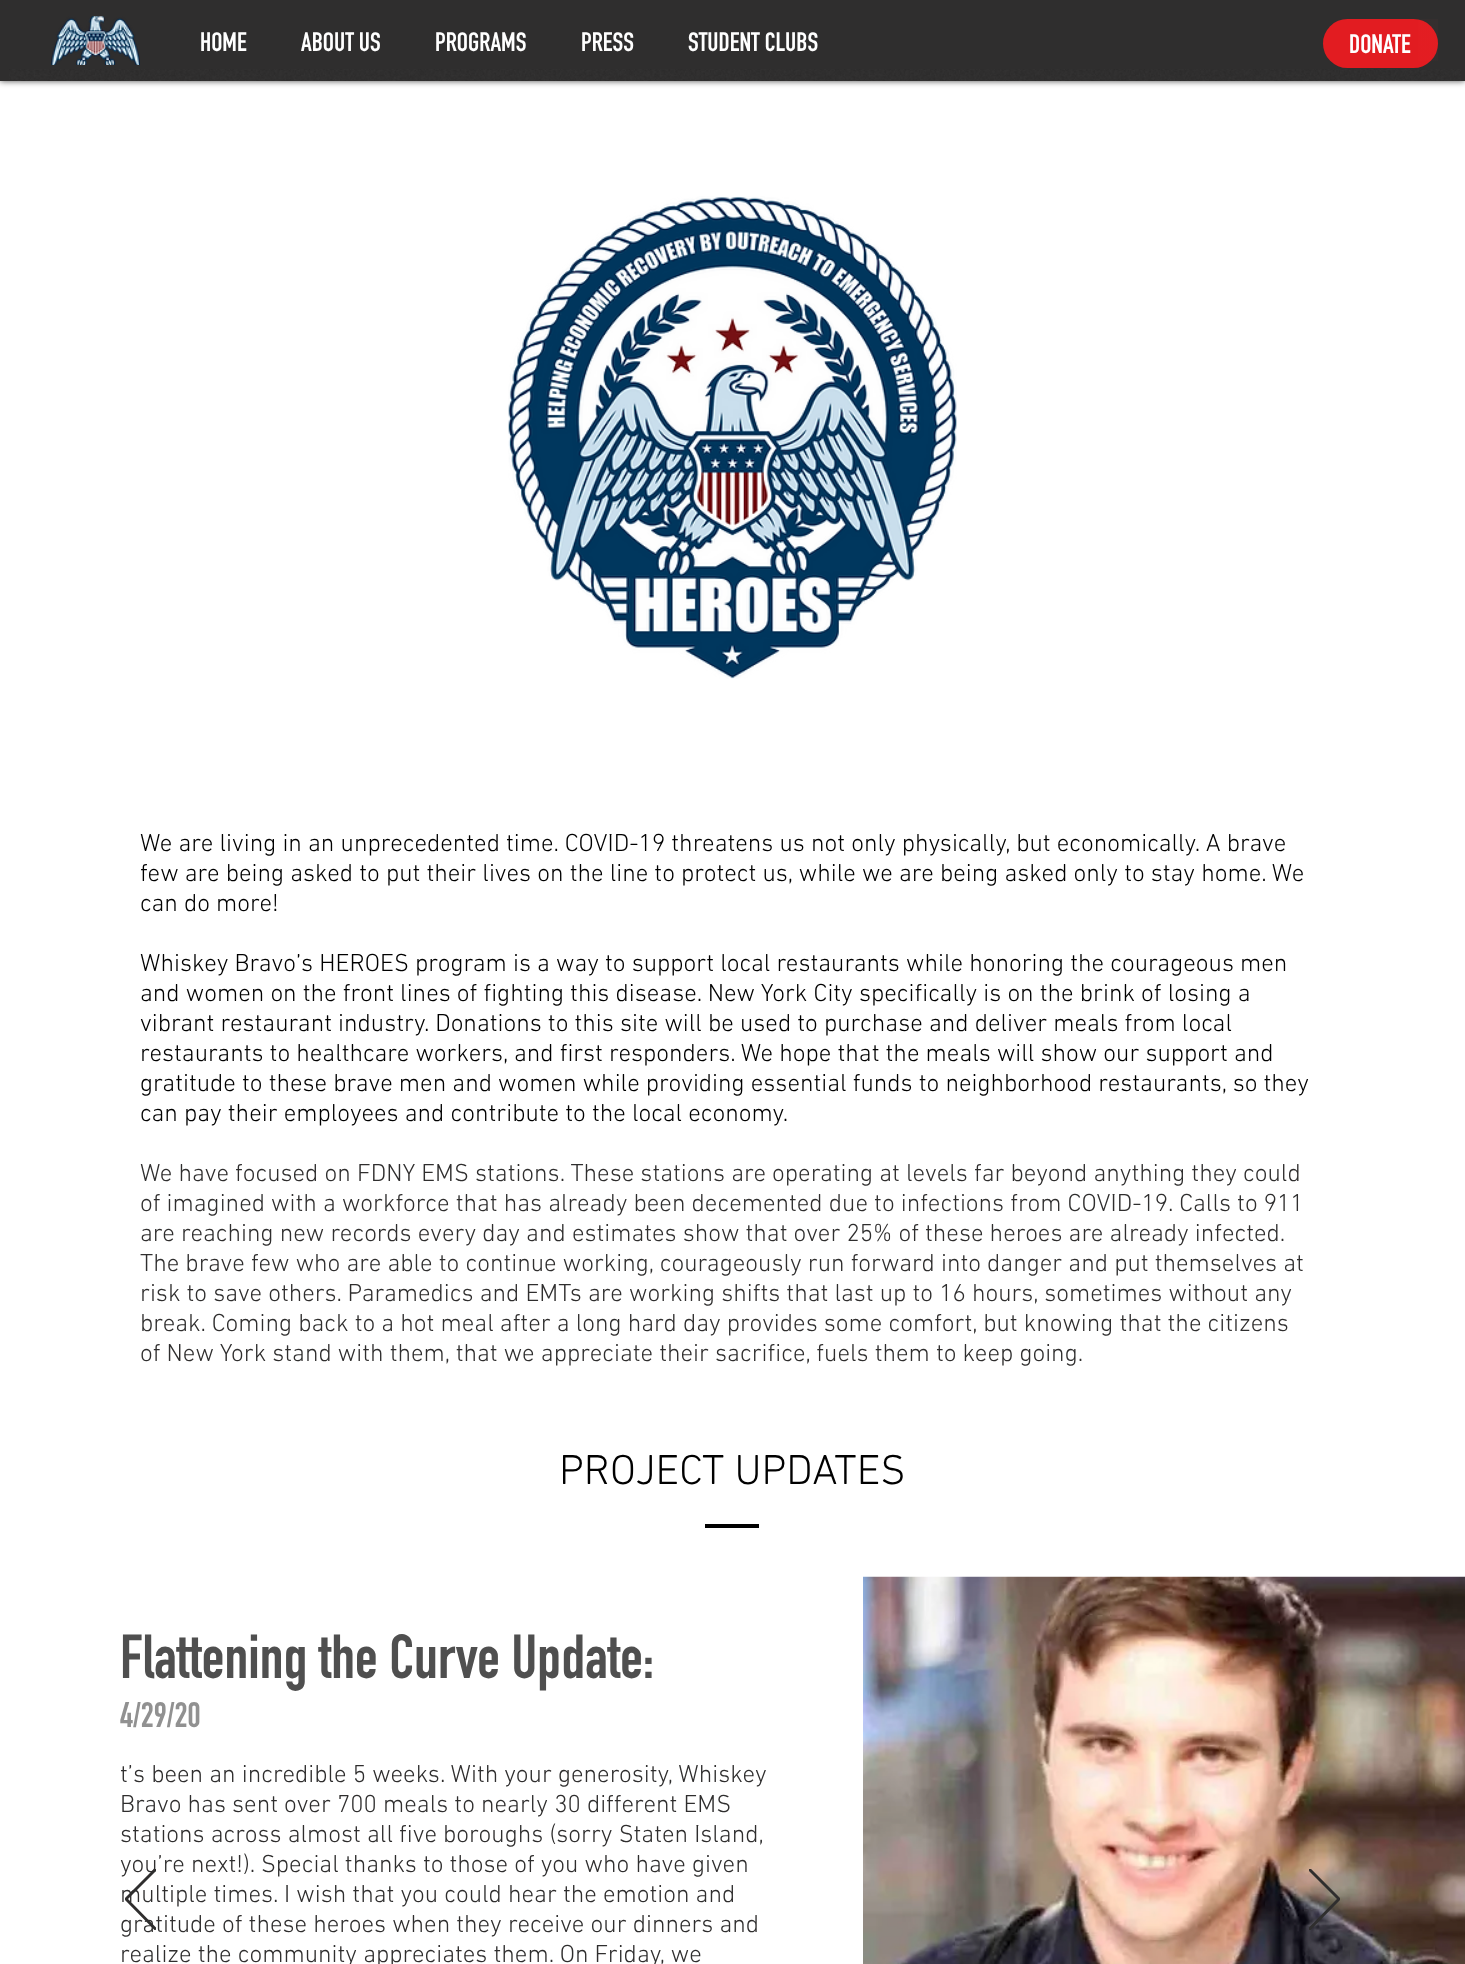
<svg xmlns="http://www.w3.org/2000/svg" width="1465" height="1964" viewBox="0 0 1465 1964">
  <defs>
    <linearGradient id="g1" gradientUnits="userSpaceOnUse" x1="1425" y1="4.2" x2="1335" y2="82"><stop offset="0" stop-color="#ff4f4f" stop-opacity="0.03"/><stop offset="1" stop-color="#ff4f4f" stop-opacity="0"/></linearGradient>
    <clipPath id="clip1"><path d="M125 1869h31v61H125z"/></clipPath>
    <clipPath id="clip2"><path d="M1309 1869h31v61H1309z"/></clipPath>
  </defs>
  <rect width="100%" height="100%" fill="#fff"/>
  <path d="M0 0h1465v81H0z" fill="#000000b3" filter="blur(3px)"/>
  <path d="M0 69h1465v12H0z" fill="#2f2e2e"/>
  <image x="9" y="69" width="1452" height="12" href="img/1.png"/>
  <path d="M0 0h1465v69H0z" fill="#2f2e2e"/>
  <image x="51" y="16" width="89" height="49" href="img/2.png"/>
  <rect x="1323" y="19" width="115" height="49" rx="24.5" fill="#e21c21"/>
  <path d="M1418 19h20v42H1418z" fill="url(#g1)"/>
  <image x="508" y="196" width="449" height="483" href="img/3.png"/>
  <path d="M705 1524h54v4H705z" fill="#000"/>
  <image x="863" y="1576" width="602" height="388" href="img/4.png"/>
  <g clip-path="url(#clip1)">
    <path d="M155 1929.5L125 1899L155 1869L156 1870L127 1899L156 1928.5Z" fill="none" stroke="#2f2e2e" stroke-width="1.5"/>
  </g>
  <g clip-path="url(#clip2)">
    <path d="M1310 1929.5L1340 1899L1310 1869L1309 1870L1338 1899L1309 1928.5Z" fill="none" stroke="#2f2e2e" stroke-width="1.5"/>
  </g>
  <g font-family="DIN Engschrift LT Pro" font-size="26.25" fill="#fff">
    <text x="200" y="51">HOME</text>
    <text x="301" y="51">ABOUT US</text>
    <text x="435" y="51">PROGRAMS</text>
    <text x="581" y="51">PRESS</text>
    <text x="688" y="51">STUDENT CLUBS</text>
    <text x="1349" y="53">DONATE</text>
  </g>
  <g font-family="'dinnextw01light'" font-size="25" font-weight="300" fill="#000">
    <text x="140" y="851">We are living in an unprecedented time. COVID-19 threatens us not only physically, but economically. A brave</text>
    <text x="140" y="881">few are being asked to put their lives on the line to protect us, while we are being asked only to stay home. We</text>
    <text x="140" y="911">can do more!</text>
    <text x="140" y="971">Whiskey Bravo’s HEROES program is a way to support local restaurants while honoring the courageous men</text>
    <text x="140" y="1001">and women on the front lines of fighting this disease. New York City specifically is on the brink of losing a</text>
    <text x="140" y="1031">vibrant restaurant industry. Donations to this site will be used to purchase and deliver meals from local</text>
    <text x="140" y="1061">restaurants to healthcare workers, and first responders. We hope that the meals will show our support and</text>
    <text x="140" y="1091">gratitude to these brave men and women while providing essential funds to neighborhood restaurants, so they</text>
    <text x="140" y="1121">can pay their employees and contribute to the local economy.</text>
  </g>
  <g font-family="'dinnextw01light'" font-size="25" font-weight="300" fill="#2f2e2e">
    <text x="140" y="1181">We have focused on FDNY EMS stations. These stations are operating at levels far beyond anything they could</text>
    <text x="140" y="1211">of imagined with a workforce that has already been decemented due to infections from COVID-19. Calls to 911</text>
    <text x="140" y="1241">are reaching new records every day and estimates show that over 25% of these heroes are already infected.</text>
    <text x="140" y="1271">The brave few who are able to continue working, courageously run forward into danger and put themselves at</text>
    <text x="140" y="1301">risk to save others. Paramedics and EMTs are working shifts that last up to 16 hours, sometimes without any</text>
    <text x="140" y="1331">break. Coming back to a hot meal after a long hard day provides some comfort, but knowing that the citizens</text>
    <text x="140" y="1361">of New York stand with them, that we appreciate their sacrifice, fuels them to keep going.</text>
  </g>
  <text x="559" y="1484" font-family="'dinnextw01light'" font-size="42.5" font-weight="300" fill="#000">PROJECT UPDATES</text>
  <text x="120" y="1678" font-family="DIN Engschrift LT Pro" font-size="61.25" fill="#4f4f4f">Flattening the Curve Update:</text>
  <text x="120" y="1727" font-family="DIN Engschrift LT Pro" font-size="35" fill="#919191">4/29/20</text>
  <g font-family="'dinnextw01light'" font-size="25" font-weight="300" fill="#2f2e2e">
    <text x="120" y="1782">t’s been an incredible 5 weeks. With your generosity, Whiskey</text>
    <text x="120" y="1812">Bravo has sent over 700 meals to nearly 30 different EMS</text>
    <text x="120" y="1842">stations across almost all five boroughs (sorry Staten Island,</text>
    <text x="120" y="1872">you’re next!). Special thanks to those of you who have given</text>
    <text x="120" y="1902">multiple times. I wish that you could hear the emotion and</text>
    <text x="120" y="1932">gratitude of these heroes when they receive our dinners and</text>
    <text x="120" y="1962">realize the community appreciates them. On Friday, we</text>
  </g>
</svg>
